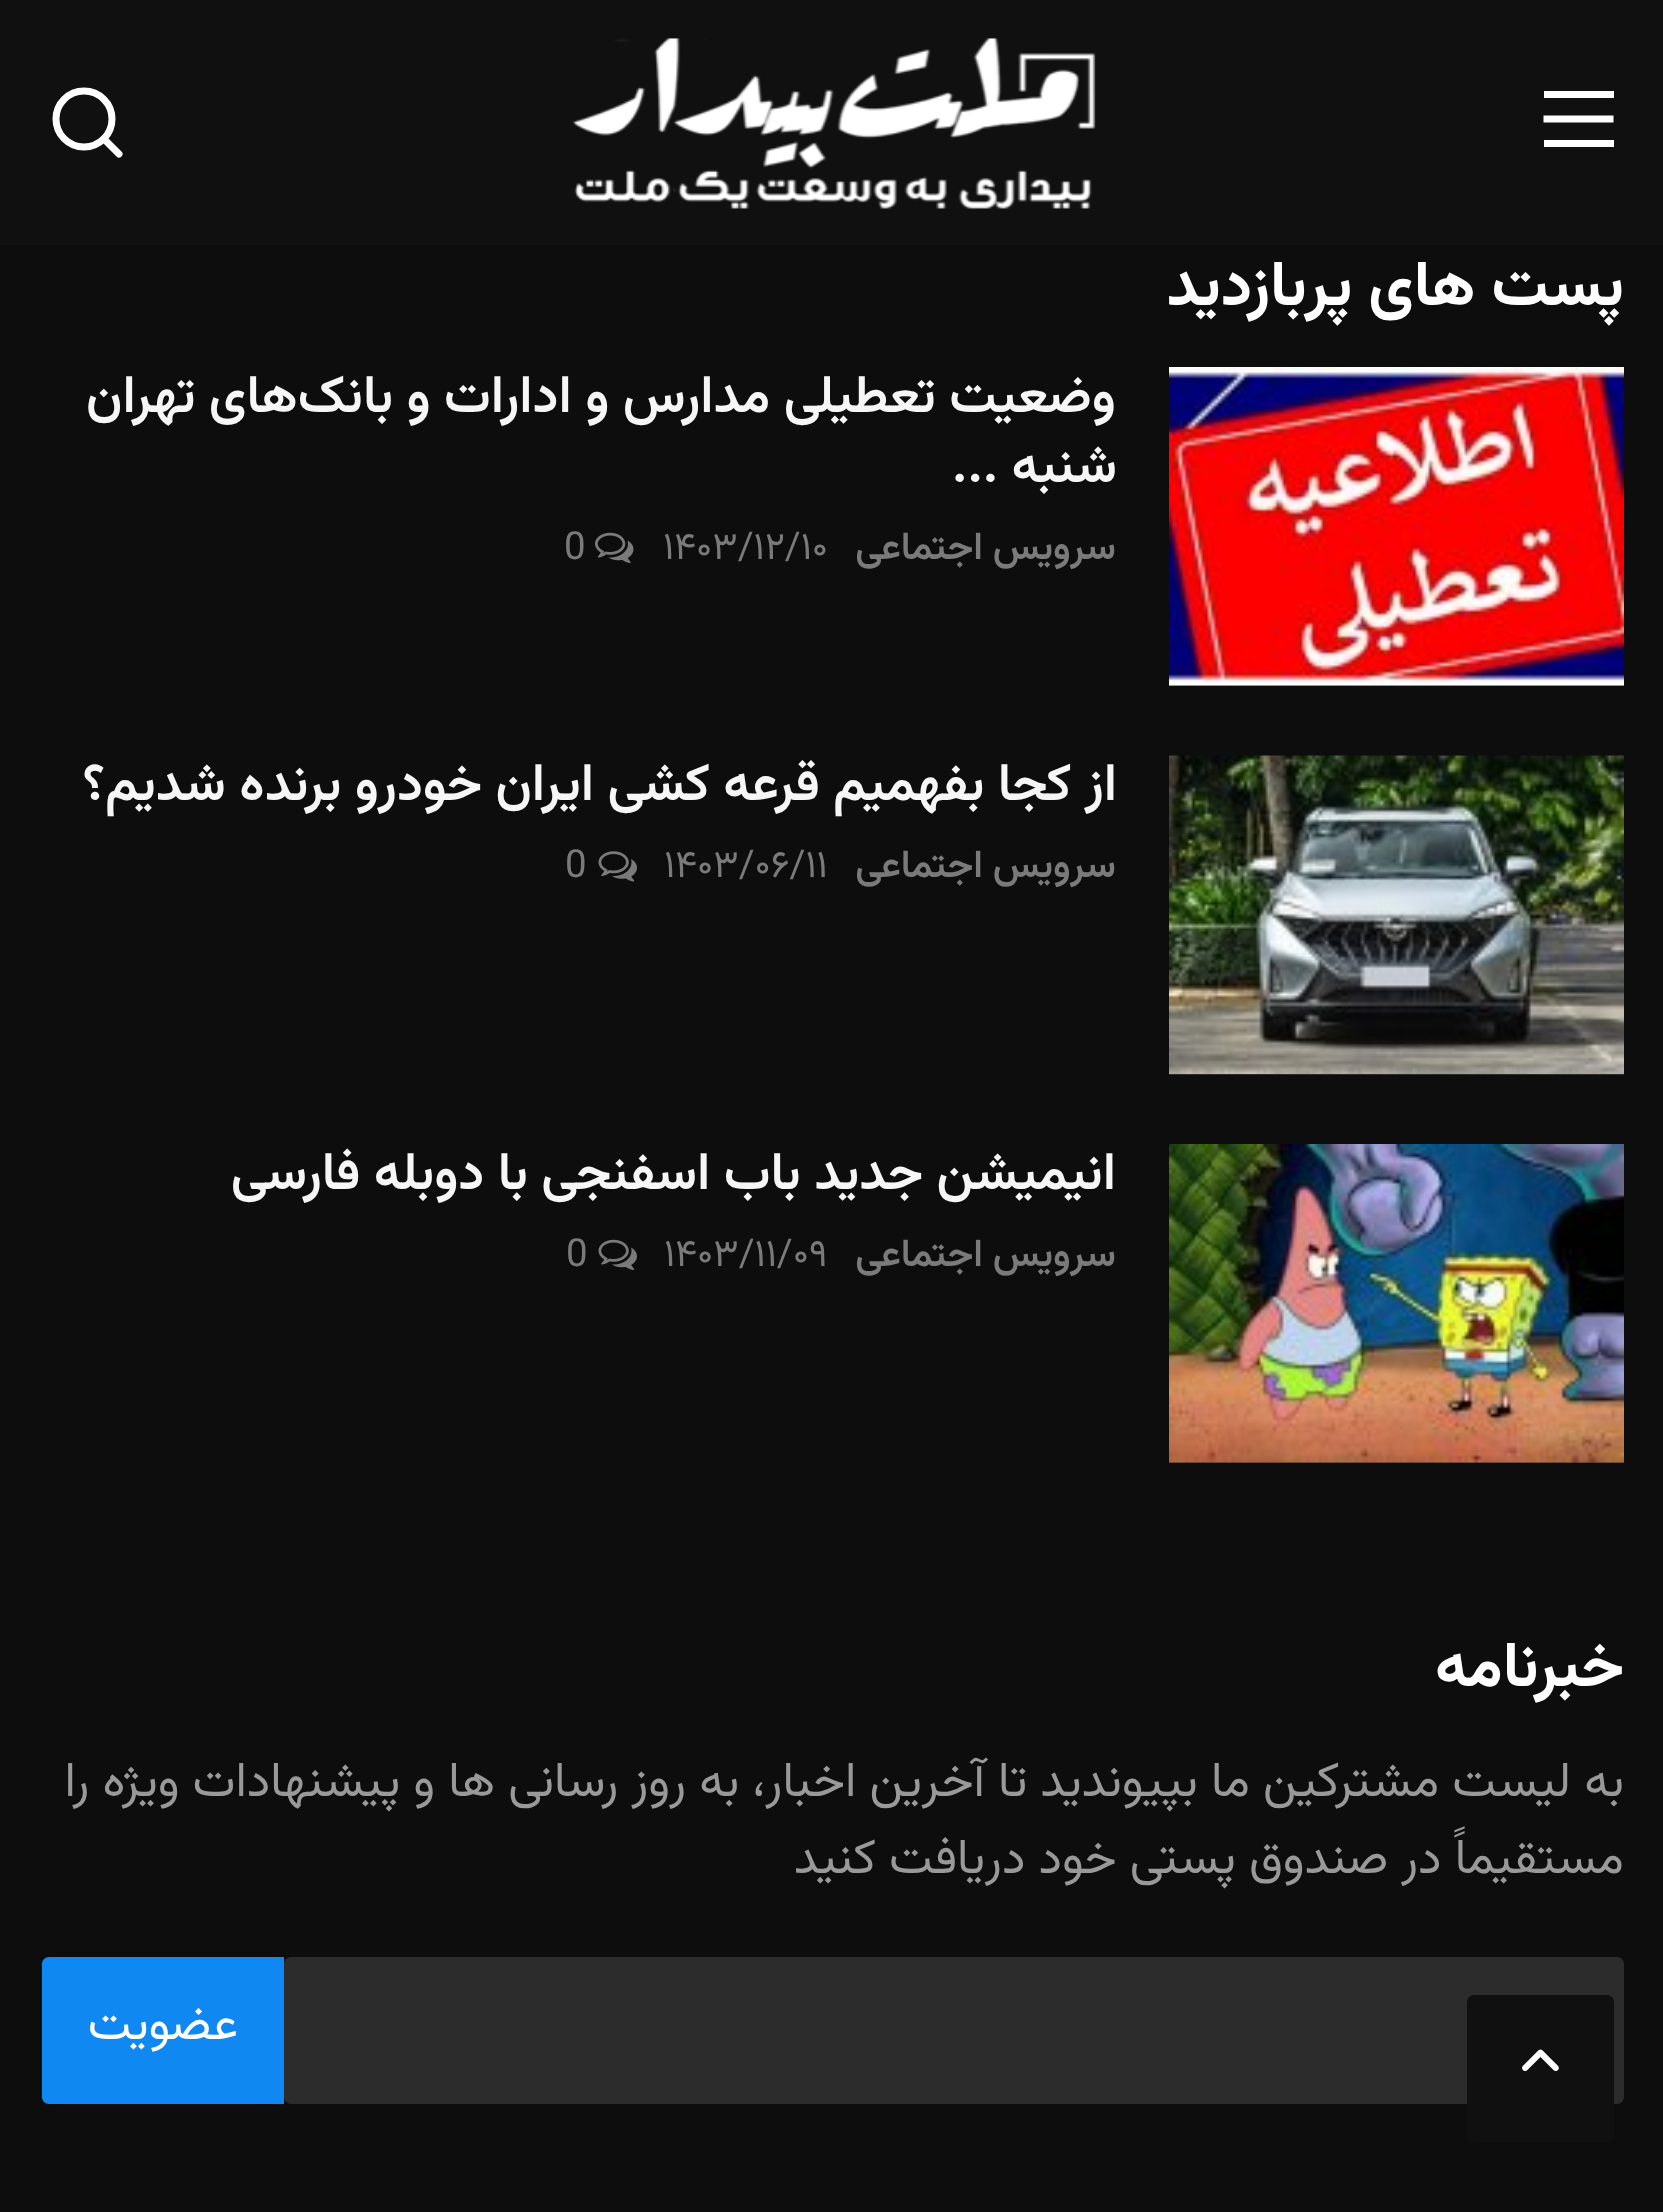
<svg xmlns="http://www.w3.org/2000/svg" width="1663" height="2212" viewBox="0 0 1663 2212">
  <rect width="100%" height="100%" fill="#0d0d0d"/>
  <path d="M0 0h1663v245H0z" fill="#101010"/>
  <path d="M1544 91h70v7H1544z" fill="#fff"/>
  <path d="M1543.5 119H1613.5" fill="none" stroke="#fff" stroke-width="7"/>
  <path d="M1544 140h70v7H1544z" fill="#fff"/>
  <image x="573" y="38" width="523" height="171" href="img/1.png"/>
  <circle cx="84" cy="119" r="28" fill="none" stroke="#fff" stroke-width="7"/>
  <path d="M119 154L104 139" fill="none" stroke="#fff" stroke-width="7" stroke-linecap="round" stroke-linejoin="round"/>
  <path d="M1169 685h455v1H1169z" fill="#2c2c2c"/>
  <image x="1169" y="367" width="455" height="319" href="img/2.png"/>
  <image x="595" y="532" width="39" height="31" href="img/3.png"/>
  <path d="M1169 1074h455v1H1169z" fill="#2c2c2c"/>
  <image x="1169" y="755" width="455" height="319" href="img/4.png"/>
  <image x="598" y="851" width="39" height="31" href="img/5.png"/>
  <path d="M1169 1462h455v1H1169z" fill="#2c2c2c"/>
  <image x="1169" y="1144" width="455" height="319" href="img/6.png"/>
  <image x="598" y="1239" width="39" height="31" href="img/7.png"/>
  <rect x="284" y="1957" width="1340" height="147" rx="7" fill="#2c2c2c"/>
  <path d="M49 1957H284V2104H49C45 2104 42 2101 42 2097V1964C42 1960 45 1957 49 1957Z" fill="#0f88f1"/>
  <rect x="1467" y="1995" width="147" height="147" rx="7" fill="#101010"/>
  <image x="1522" y="2049" width="37" height="22" href="img/8.png"/>
  <text x="1624" y="305" font-family="Vazirmatn" font-size="63" font-weight="bold" direction="rtl" fill="#fff">پست های پربازدید</text>
  <g font-family="Vazirmatn" font-size="52.5" font-weight="600" direction="rtl" fill="#f6f6f6">
    <text x="1116" y="412">وضعیت تعطیلی مدارس و ادارات و بانک‌های تهران</text>
    <text x="1117" y="482">شنبه ...</text>
  </g>
  <text x="1116" y="559" font-family="Vazirmatn" font-size="38.5" font-weight="600" direction="rtl" fill="#7a7a7a">سرویس اجتماعی</text>
  <g font-family="Vazirmatn" font-size="38.5" fill="#7a7a7a">
    <text x="663" y="559">۱۴۰۳/۱۲/۱۰</text>
    <text x="564" y="559">0</text>
  </g>
  <text x="1117" y="800" font-family="Vazirmatn" font-size="52.5" font-weight="600" direction="rtl" fill="#f6f6f6">از کجا بفهمیم قرعه کشی ایران خودرو برنده شدیم؟</text>
  <text x="1116" y="877" font-family="Vazirmatn" font-size="38.5" font-weight="600" direction="rtl" fill="#7a7a7a">سرویس اجتماعی</text>
  <g font-family="Vazirmatn" font-size="38.5" fill="#7a7a7a">
    <text x="664" y="877">۱۴۰۳/۰۶/۱۱</text>
    <text x="565" y="877">0</text>
  </g>
  <text x="1116" y="1189" font-family="Vazirmatn" font-size="52.5" font-weight="600" direction="rtl" fill="#f6f6f6">انیمیشن جدید باب اسفنجی با دوبله فارسی</text>
  <text x="1116" y="1266" font-family="Vazirmatn" font-size="38.5" font-weight="600" direction="rtl" fill="#7a7a7a">سرویس اجتماعی</text>
  <g font-family="Vazirmatn" font-size="38.5" fill="#7a7a7a">
    <text x="664" y="1266">۱۴۰۳/۱۱/۰۹</text>
    <text x="566" y="1266">0</text>
  </g>
  <text x="1624" y="1686" font-family="Vazirmatn" font-size="63" font-weight="bold" direction="rtl" fill="#fff">خبرنامه</text>
  <g font-family="Vazirmatn" font-size="49" direction="rtl" fill="#999">
    <text x="1624" y="1796">به لیست مشترکین ما بپیوندید تا آخرین اخبار، به روز رسانی ها و پیشنهادات ویژه را</text>
    <text x="1624" y="1873">مستقیماً در صندوق پستی خود دریافت کنید</text>
  </g>
  <text x="238" y="2039" font-family="Vazirmatn" font-size="49" direction="rtl" fill="#fff">عضویت</text>
</svg>
